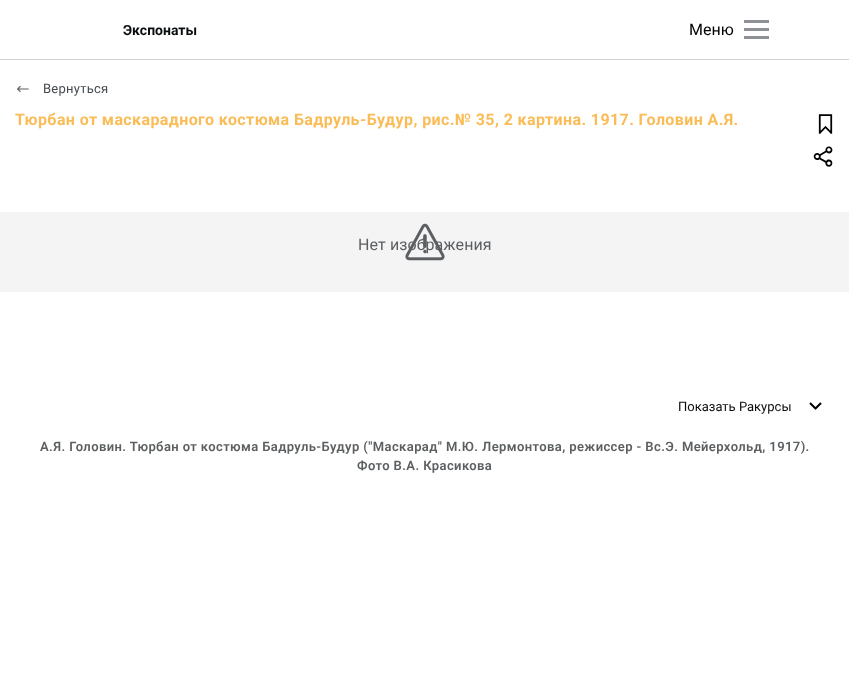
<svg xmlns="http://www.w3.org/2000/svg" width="849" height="687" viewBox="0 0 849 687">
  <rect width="100%" height="100%" fill="#fff"/>
  <path d="M0 59h849v1H0z" fill="#d3d3d3"/>
  <path d="M744 20h25v3H744z" fill="#8e9195"/>
  <path d="M744 28h25v3H744z" fill="#8e9195"/>
  <path d="M744 36h25v3H744z" fill="#8e9195"/>
  <image x="17" y="85" width="12" height="8" href="img/1.png"/>
  <image x="818" y="114" width="15" height="20" href="img/2.png"/>
  <image x="813" y="146" width="20" height="21" href="img/3.png"/>
  <path d="M0 212h849v80H0z" fill="#f4f4f5"/>
  <image x="809" y="402" width="13" height="8" href="img/5.png"/>
  <text x="123" y="35" font-family="Roboto" font-size="14" font-weight="bold" fill="#0a0d10">Экспонаты</text>
  <text x="689" y="35" font-family="Roboto" font-size="16" fill="#000">Меню</text>
  <text x="43" y="93" font-family="Roboto" font-size="13" letter-spacing="0.25" fill="#444a50">Вернуться</text>
  <text x="15" y="125" font-family="Roboto" font-size="16" font-weight="bold" letter-spacing="0.4" fill="#fabc57">Тюрбан от маскарадного костюма Бадруль-Будур, рис.№ 35, 2 картина. 1917. Головин А.Я.</text>
  <text x="358" y="250" font-family="Roboto" font-size="16" letter-spacing="0.1" fill="#5c5f61">Нет изображения</text>
  <image x="405" y="223" width="40" height="38" href="img/4.png"/>
  <text x="678" y="411" font-family="Roboto" font-size="13" fill="#0a0d10">Показать Ракурсы</text>
  <g font-family="Roboto" font-size="13" font-weight="600" letter-spacing="0.4" fill="#5c5f61">
    <text x="40" y="451">А.Я. Головин. Тюрбан от костюма Бадруль-Будур ("Маскарад" М.Ю. Лермонтова, режиссер - Вс.Э. Мейерхольд, 1917).</text>
    <text x="357" y="470">Фото В.А. Красикова</text>
  </g>
</svg>
